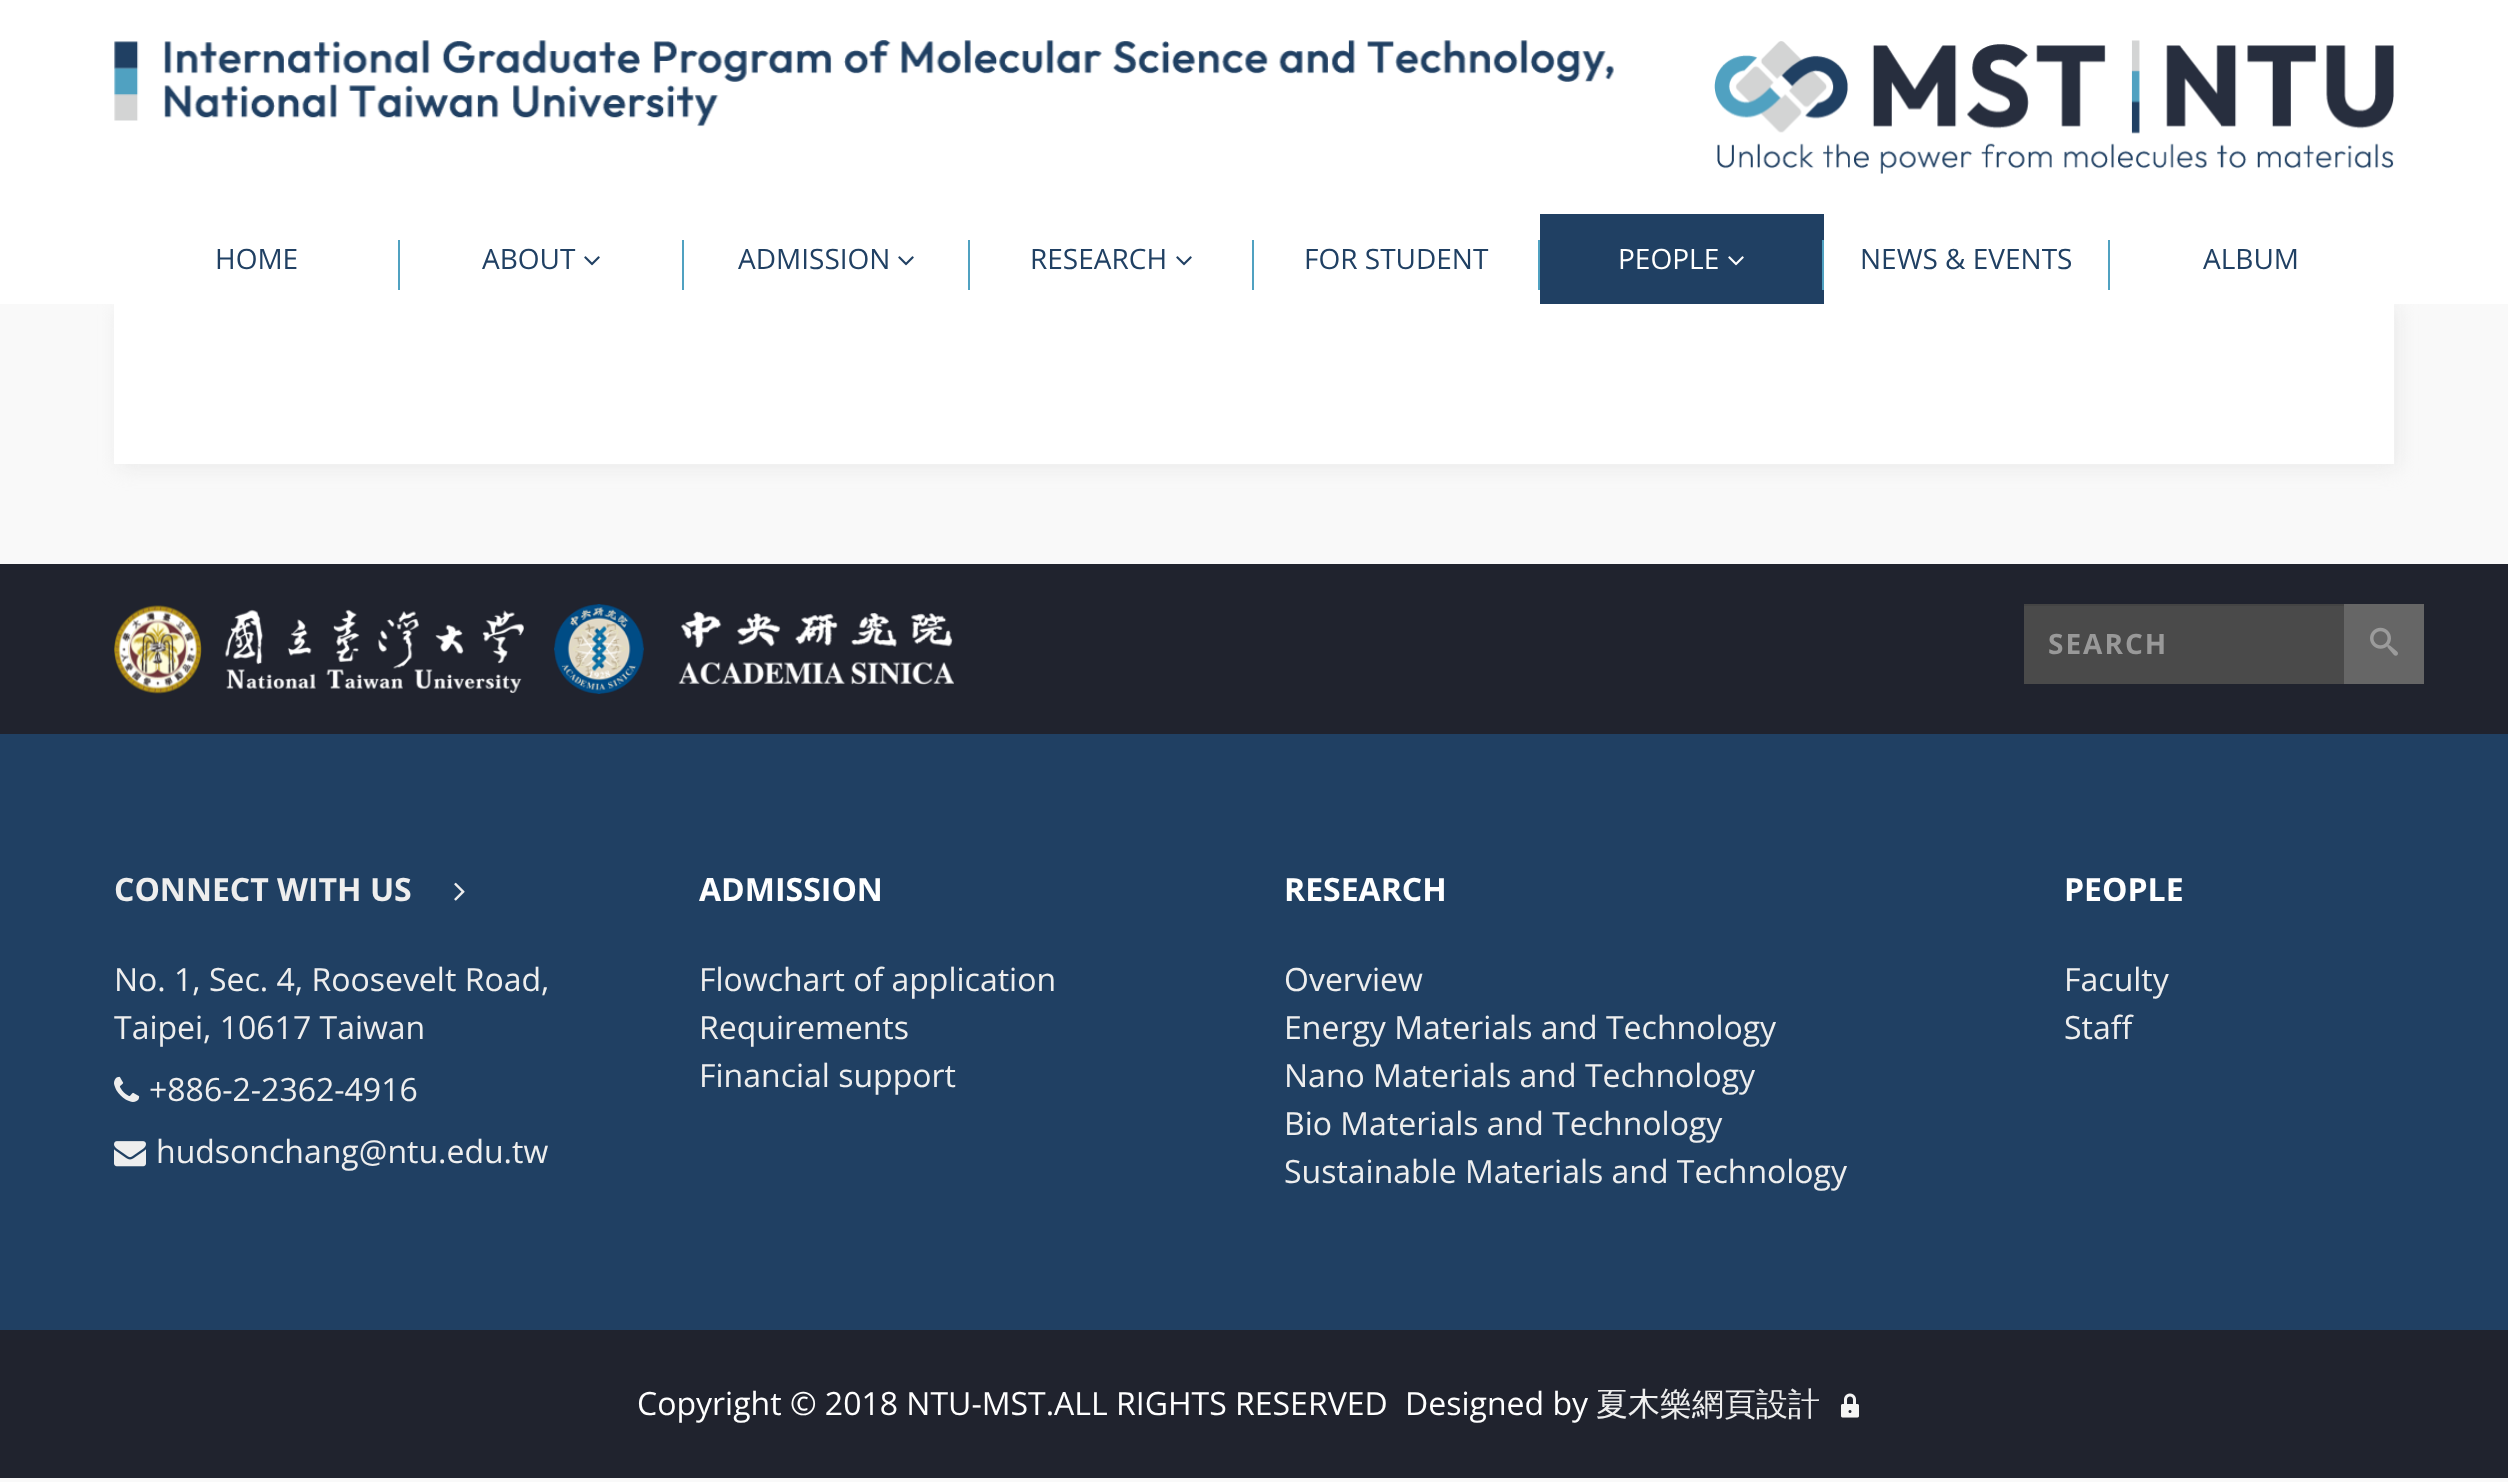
<svg xmlns="http://www.w3.org/2000/svg" width="2508" height="1482" viewBox="0 0 2508 1482">
  <rect width="100%" height="100%" fill="#f9f9f9"/>
  <path d="M0 0h2508v214H0z" fill="#fff"/>
  <image x="114" y="40" width="1500" height="87" href="img/1.png"/>
  <image x="1714" y="40" width="680" height="134" href="img/2.png"/>
  <path d="M118 308h2280v160H118z" fill="#dddddd80" filter="blur(10px)"/>
  <path d="M0 214h2508v90H0z" fill="#fff"/>
  <path d="M398 240h2v50H398z" fill="#50a1c1"/>
  <image x="584" y="256" width="16" height="10" href="img/3.png"/>
  <path d="M682 240h2v50H682z" fill="#50a1c1"/>
  <image x="898" y="256" width="16" height="10" href="img/3.png"/>
  <path d="M968 240h2v50H968z" fill="#50a1c1"/>
  <image x="1176" y="256" width="16" height="10" href="img/3.png"/>
  <path d="M1252 240h2v50H1252z" fill="#50a1c1"/>
  <path d="M1540 214h284v90H1540z" fill="#204063"/>
  <path d="M1538 240h2v50H1538z" fill="#50a1c1"/>
  <image x="1728" y="256" width="16" height="10" href="img/4.png"/>
  <path d="M1822 240h2v50H1822z" fill="#50a1c1"/>
  <path d="M2108 240h2v50H2108z" fill="#50a1c1"/>
  <path d="M114 304h2280v160H114z" fill="#fff"/>
  <path d="M0 564h2508v170H0z" fill="#20232e"/>
  <image x="114" y="605" width="410" height="89" href="img/5.png"/>
  <image x="554" y="604" width="400" height="90" href="img/6.png"/>
  <path d="M2024 606h320v78H2024z" fill="#4a4a4a"/>
  <path d="M2024 604h320v2H2024z" fill="#444"/>
  <path d="M2344 604h80v80H2344z" fill="#666"/>
  <image x="2370" y="627" width="28" height="29" href="img/7.png"/>
  <path d="M0 734h2508v596H0z" fill="#204063"/>
  <image x="454" y="882" width="11" height="19" href="img/8.png"/>
  <image x="114" y="1076" width="26" height="26" href="img/9.png"/>
  <image x="114" y="1141" width="32" height="26" href="img/10.png"/>
  <path d="M0 1330h2508v148H0z" fill="#20232e"/>
  <image x="1841" y="1393" width="18" height="25" href="img/11.png"/>
  <g font-family="Open Sans" font-size="28" fill="#204063">
    <text x="215" y="269">HOME</text>
    <text x="482" y="269">ABOUT</text>
    <text x="738" y="269">ADMISSION</text>
    <text x="1030" y="269">RESEARCH</text>
    <text x="1304" y="269">FOR STUDENT</text>
  </g>
  <text x="1618" y="269" font-family="Open Sans" font-size="28" fill="#fff">PEOPLE</text>
  <g font-family="Open Sans" font-size="28" fill="#204063">
    <text x="1860" y="269">NEWS &amp; EVENTS</text>
    <text x="2203" y="269">ALBUM</text>
  </g>
  <text x="2048" y="654" font-family="Open Sans" font-size="28" font-weight="bold" letter-spacing="2" fill="#999">SEARCH</text>
  <text x="114" y="901" font-family="Open Sans" font-size="32" font-weight="bold" fill="#eee">CONNECT WITH US</text>
  <g font-family="Open Sans" font-size="32" fill="#eee">
    <text x="114" y="991">No. 1, Sec. 4, Roosevelt Road,</text>
    <text x="114" y="1039">Taipei, 10617 Taiwan</text>
    <text x="149" y="1101">+886-2-2362-4916</text>
    <text x="156" y="1163">hudsonchang@ntu.edu.tw</text>
  </g>
  <text x="699" y="901" font-family="Open Sans" font-size="32" font-weight="bold" fill="#fff">ADMISSION</text>
  <g font-family="Open Sans" font-size="32" fill="#eee">
    <text x="699" y="991">Flowchart of application</text>
    <text x="699" y="1039">Requirements</text>
    <text x="699" y="1087">Financial support</text>
  </g>
  <text x="1284" y="901" font-family="Open Sans" font-size="32" font-weight="bold" fill="#fff">RESEARCH</text>
  <g font-family="Open Sans" font-size="32" fill="#eee">
    <text x="1284" y="991">Overview</text>
    <text x="1284" y="1039">Energy Materials and Technology</text>
    <text x="1284" y="1087">Nano Materials and Technology</text>
    <text x="1284" y="1135">Bio Materials and Technology</text>
    <text x="1284" y="1183">Sustainable Materials and Technology</text>
  </g>
  <text x="2064" y="901" font-family="Open Sans" font-size="32" font-weight="bold" fill="#fff">PEOPLE</text>
  <g font-family="Open Sans" font-size="32" fill="#eee">
    <text x="2064" y="991">Faculty</text>
    <text x="2064" y="1039">Staff</text>
  </g>
  <g font-family="Open Sans" font-size="32" fill="#fff">
    <text x="637" y="1415">Copyright © 2018 NTU-MST.ALL RIGHTS RESERVED</text>
    <text x="1405" y="1415">Designed by</text>
  </g>
  <text x="1596" y="1415" font-family="WenQuanYi Zen Hei" font-size="32" font-weight="500" fill="#eee">夏木樂網頁設計</text>
</svg>
